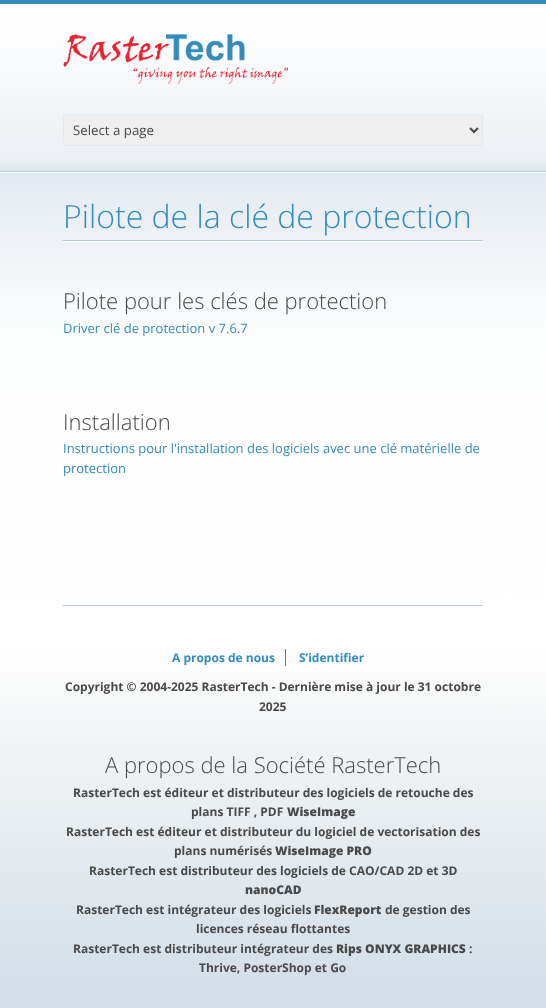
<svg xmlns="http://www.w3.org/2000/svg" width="546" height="1008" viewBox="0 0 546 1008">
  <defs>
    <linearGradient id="g1" gradientUnits="userSpaceOnUse" x1="273" y1="4" x2="273" y2="171"><stop offset="0.07" stop-color="#fff"/><stop offset="0.93" stop-color="#ecf0f4"/><stop offset="1" stop-color="#dde6ed"/></linearGradient>
    <linearGradient id="g2" gradientUnits="userSpaceOnUse" x1="273" y1="-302" x2="273" y2="173"><stop offset="0" stop-color="#e4eaf1"/><stop offset="0.35" stop-color="#fdfefe"/><stop offset="1" stop-color="#fff"/></linearGradient>
    <linearGradient id="g3" gradientUnits="userSpaceOnUse" x1="273" y1="173" x2="273" y2="648"><stop offset="0" stop-color="#e4eaf1"/><stop offset="0.35" stop-color="#fdfefe"/><stop offset="1" stop-color="#fff"/></linearGradient>
    <linearGradient id="g4" gradientUnits="userSpaceOnUse" x1="273" y1="648" x2="273" y2="1008"><stop offset="0" stop-color="#fff"/><stop offset="0.2" stop-color="#f4f6f7"/><stop offset="1" stop-color="#d2dde6"/></linearGradient>
  </defs>
  <rect width="100%" height="100%" fill="#328dbc"/>
  <path d="M0 4h546v167H0z" fill="url(#g1)"/>
  <path d="M0 171h546v1H0z" fill="#bccfdb"/>
  <image x="63" y="34" width="225" height="50" href="img/1.png"/>
  <path d="M63.5 114.5h419v31H63.5z" fill="#efefef" stroke="#e3eaf0"/>
  <path d="M470 128L474 132L478 128" fill="none" stroke="#494949" stroke-width="2"/>
  <path d="M0 172h546v1H0z" fill="url(#g2)"/>
  <path d="M0 173h546v475H0z" fill="url(#g3)"/>
  <path d="M63 241h420v1H63z" fill="#fff"/>
  <path d="M63 240h420v1H63z" fill="#bcccd8"/>
  <path d="M63 605h420v1H63z" fill="#bcccd8"/>
  <path d="M0 648h546v360H0z" fill="url(#g4)"/>
  <path d="M285 649h1v17H285z" fill="#328dbc"/>
  <text x="73" y="135" font-family="Open Sans" font-size="13.25" fill="#494949">Select a page</text>
  <text x="63" y="228" font-family="Open Sans" font-size="32" font-weight="300" fill="#328dbc">Pilote de la clé de protection</text>
  <text x="63" y="309" font-family="Open Sans" font-size="22" font-weight="300" fill="#494949">Pilote pour les clés de protection</text>
  <text x="63" y="333" font-family="Open Sans" font-size="13" fill="#328dbc">Driver clé de protection v 7.6.7</text>
  <text x="63" y="430" font-family="Open Sans" font-size="22" font-weight="300" fill="#494949">Installation</text>
  <g font-family="Open Sans" font-size="13" fill="#328dbc">
    <text x="63" y="453">Instructions pour l'installation des logiciels avec une clé matérielle de</text>
    <text x="63" y="473">protection</text>
  </g>
  <g font-family="Open Sans" font-size="12" font-weight="bold" fill="#328dbc">
    <text x="172" y="662">A propos de nous</text>
    <text x="299" y="662">S’identifier</text>
  </g>
  <g font-family="Open Sans" font-size="12" font-weight="bold" fill="#494949">
    <text x="65" y="691">Copyright © 2004-2025 RasterTech - Dernière mise à jour le 31 octobre</text>
    <text x="259" y="711">2025</text>
  </g>
  <text x="105" y="773" font-family="Open Sans" font-size="22" font-weight="300" fill="#494949">A propos de la Société RasterTech</text>
  <g font-family="Open Sans" font-size="12" font-weight="bold" fill="#494949">
    <text x="73" y="797">RasterTech est éditeur et distributeur des logiciels de retouche des</text>
    <text x="191" y="816">plans TIFF , PDF</text>
  </g>
  <text x="287" y="816" font-family="Open Sans" font-size="12" font-weight="800" fill="#494949">WiseImage</text>
  <g font-family="Open Sans" font-size="12" font-weight="bold" fill="#494949">
    <text x="66" y="836">RasterTech est éditeur et distributeur du logiciel de vectorisation des</text>
    <text x="174" y="855">plans numérisés</text>
  </g>
  <text x="275" y="855" font-family="Open Sans" font-size="12" font-weight="800" fill="#494949">WiseImage PRO</text>
  <text x="89" y="875" font-family="Open Sans" font-size="12" font-weight="bold" fill="#494949">RasterTech est distributeur des logiciels de CAO/CAD 2D et 3D</text>
  <text x="245" y="894" font-family="Open Sans" font-size="12" font-weight="800" fill="#494949">nanoCAD</text>
  <text x="76" y="914" font-family="Open Sans" font-size="12" font-weight="bold" fill="#494949">RasterTech est intégrateur des logiciels</text>
  <text x="314" y="914" font-family="Open Sans" font-size="12" font-weight="800" fill="#494949">FlexReport</text>
  <g font-family="Open Sans" font-size="12" font-weight="bold" fill="#494949">
    <text x="385" y="914">de gestion des</text>
    <text x="196" y="933">licences réseau flottantes</text>
    <text x="73" y="953">RasterTech est distributeur intégrateur des</text>
  </g>
  <text x="336" y="953" font-family="Open Sans" font-size="12" font-weight="800" fill="#494949">Rips ONYX GRAPHICS</text>
  <g font-family="Open Sans" font-size="12" font-weight="bold" fill="#494949">
    <text x="469" y="953">:</text>
    <text x="199" y="972">Thrive, PosterShop et Go</text>
  </g>
</svg>
